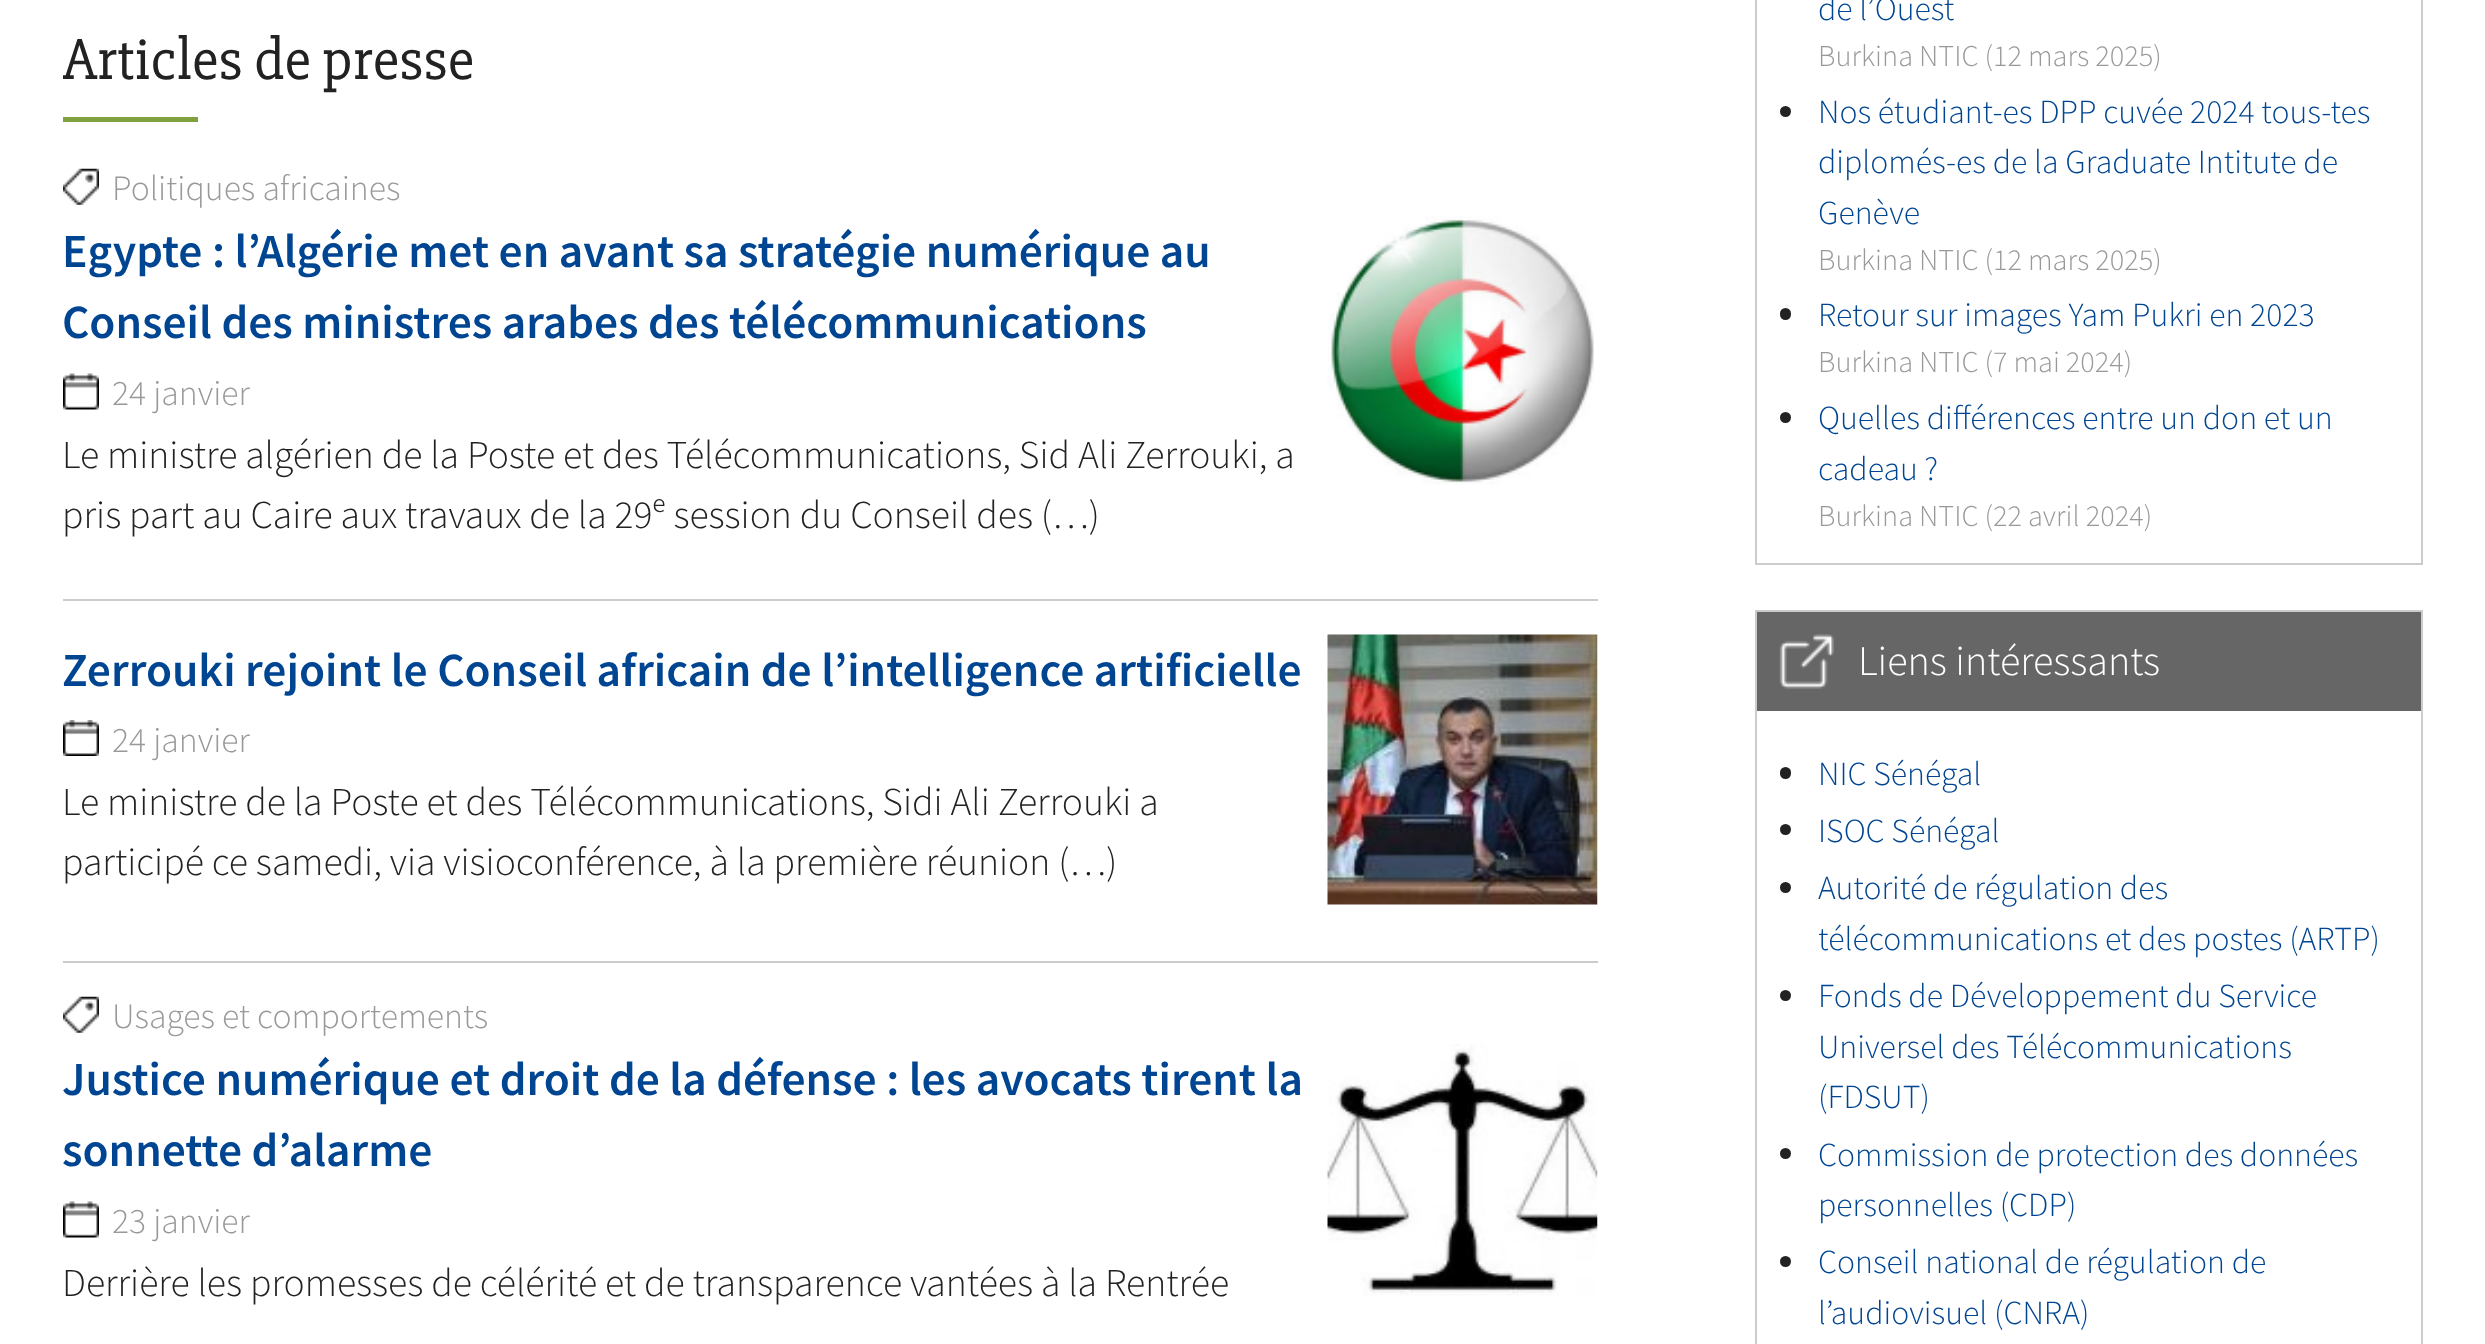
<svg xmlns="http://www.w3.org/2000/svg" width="2485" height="1344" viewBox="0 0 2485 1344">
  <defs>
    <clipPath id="clip1"><path d="M63 0h1535v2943H63z"/></clipPath>
  </defs>
  <rect width="100%" height="100%" fill="#fff"/>
  <path d="M63 117h135v5H63z" fill="#7fa23e"/>
  <path d="M63 599h1535v2H63z" fill="#ccc"/>
  <image x="63" y="168" width="36" height="37" href="img/1.png"/>
  <image x="1327" y="216" width="267" height="269" href="img/2.png"/>
  <image x="63" y="373" width="36" height="37" href="img/3.png"/>
  <path d="M63 961h1535v2H63z" fill="#ccc"/>
  <image x="1327" y="634" width="271" height="271" href="img/4.png"/>
  <image x="63" y="720" width="36" height="36" href="img/5.png"/>
  <image x="63" y="996" width="36" height="37" href="img/1.png"/>
  <image x="1327" y="1044" width="271" height="252" href="img/6.png"/>
  <image x="63" y="1201" width="36" height="37" href="img/3.png"/>
  <path d="M1756 -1h666v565H1756z" fill="none" stroke="#ccc" stroke-width="2"/>
  <circle cx="1785.5" cy="111.5" r="5.5" fill="#222"/>
  <rect x="1780" y="308" width="11" height="12" rx="5.5" fill="#222"/>
  <circle cx="1785.5" cy="417.5" r="5.5" fill="#222"/>
  <path d="M1756 611h666v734H1756z" fill="none" stroke="#ccc" stroke-width="2"/>
  <path d="M1757 612h664v99H1757z" fill="#666"/>
  <image x="1779" y="634" width="55" height="55" href="img/7.png"/>
  <rect x="1780" y="767" width="11" height="12" rx="5.5" fill="#222"/>
  <circle cx="1785.5" cy="829.5" r="5.5" fill="#222"/>
  <circle cx="1785.5" cy="887.5" r="5.5" fill="#222"/>
  <circle cx="1785.5" cy="995.5" r="5.5" fill="#222"/>
  <circle cx="1785.5" cy="1153.5" r="5.5" fill="#222"/>
  <circle cx="1785.5" cy="1261.5" r="5.5" fill="#222"/>
  <g clip-path="url(#clip1)">
    <text x="62" y="79" font-family="'Slabo 27px'" font-size="59.5" fill="#222">Articles de presse</text>
  </g>
  <text x="112" y="200" font-family="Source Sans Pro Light" font-size="35.6" font-weight="300" fill="#999">Politiques africaines</text>
  <g font-family="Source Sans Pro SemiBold" font-size="47.5" font-weight="600" fill="#004592">
    <text x="62" y="267">Egypte : l’Algérie met en avant sa stratégie numérique au</text>
    <text x="62" y="338">Conseil des ministres arabes des télécommunications</text>
  </g>
  <text x="112" y="405" font-family="Source Sans Pro Light" font-size="35.6" font-weight="300" fill="#999">24 janvier</text>
  <g font-family="Source Sans Pro Light" font-size="39.6" font-weight="300" fill="#222">
    <text x="62" y="468">Le ministre algérien de la Poste et des Télécommunications, Sid Ali Zerrouki, a</text>
    <text x="62" y="528">pris part au Caire aux travaux de la 29ᵉ session du Conseil des (…)</text>
  </g>
  <text x="62" y="686" font-family="Source Sans Pro SemiBold" font-size="47.5" font-weight="600" fill="#004592">Zerrouki rejoint le Conseil africain de l’intelligence artificielle</text>
  <text x="112" y="752" font-family="Source Sans Pro Light" font-size="35.6" font-weight="300" fill="#999">24 janvier</text>
  <g font-family="Source Sans Pro Light" font-size="39.6" font-weight="300" fill="#222">
    <text x="62" y="815">Le ministre de la Poste et des Télécommunications, Sidi Ali Zerrouki a</text>
    <text x="62" y="875">participé ce samedi, via visioconférence, à la première réunion (…)</text>
  </g>
  <text x="112" y="1028" font-family="Source Sans Pro Light" font-size="35.6" font-weight="300" fill="#999">Usages et comportements</text>
  <g font-family="Source Sans Pro SemiBold" font-size="47.5" font-weight="600" fill="#004592">
    <text x="62" y="1095">Justice numérique et droit de la défense : les avocats tirent la</text>
    <text x="62" y="1166">sonnette d’alarme</text>
  </g>
  <text x="112" y="1233" font-family="Source Sans Pro Light" font-size="35.6" font-weight="300" fill="#999">23 janvier</text>
  <text x="62" y="1296" font-family="Source Sans Pro Light" font-size="39.6" font-weight="300" fill="#222">Derrière les promesses de célérité et de transparence vantées à la Rentrée</text>
  <text x="1818" y="20" font-family="Source Sans Pro Light" font-size="33.7" font-weight="300" fill="#004592">de l’Ouest</text>
  <text x="1818" y="66" font-family="Source Sans Pro Light" font-size="30.25" font-weight="300" fill="#999">Burkina NTIC (12 mars 2025)</text>
  <g font-family="Source Sans Pro Light" font-size="33.7" font-weight="300" fill="#004592">
    <text x="1818" y="123">Nos étudiant-es DPP cuvée 2024 tous-tes</text>
    <text x="1818" y="173">diplomés-es de la Graduate Intitute de</text>
    <text x="1818" y="224">Genève</text>
  </g>
  <text x="1818" y="270" font-family="Source Sans Pro Light" font-size="30.25" font-weight="300" fill="#999">Burkina NTIC (12 mars 2025)</text>
  <text x="1818" y="326" font-family="Source Sans Pro Light" font-size="33.7" font-weight="300" fill="#004592">Retour sur images Yam Pukri en 2023</text>
  <text x="1818" y="372" font-family="Source Sans Pro Light" font-size="30.25" font-weight="300" fill="#999">Burkina NTIC (7 mai 2024)</text>
  <g font-family="Source Sans Pro Light" font-size="33.7" font-weight="300" fill="#004592">
    <text x="1818" y="429">Quelles différences entre un don et un</text>
    <text x="1818" y="480">cadeau ?</text>
  </g>
  <text x="1818" y="526" font-family="Source Sans Pro Light" font-size="30.25" font-weight="300" fill="#999">Burkina NTIC (22 avril 2024)</text>
  <text x="1858" y="675" font-family="Source Sans Pro Light" font-size="42" font-weight="300" fill="#fff">Liens intéressants</text>
  <g font-family="Source Sans Pro Light" font-size="33.7" font-weight="300" fill="#004592">
    <text x="1818" y="785">NIC Sénégal</text>
    <text x="1818" y="842">ISOC Sénégal</text>
    <text x="1818" y="899">Autorité de régulation des</text>
    <text x="1818" y="950">télécommunications et des postes (ARTP)</text>
    <text x="1818" y="1007">Fonds de Développement du Service</text>
    <text x="1818" y="1058">Universel des Télécommunications</text>
    <text x="1818" y="1108">(FDSUT)</text>
    <text x="1818" y="1166">Commission de protection des données</text>
    <text x="1818" y="1216">personnelles (CDP)</text>
    <text x="1818" y="1273">Conseil national de régulation de</text>
    <text x="1818" y="1324">l’audiovisuel (CNRA)</text>
  </g>
</svg>
